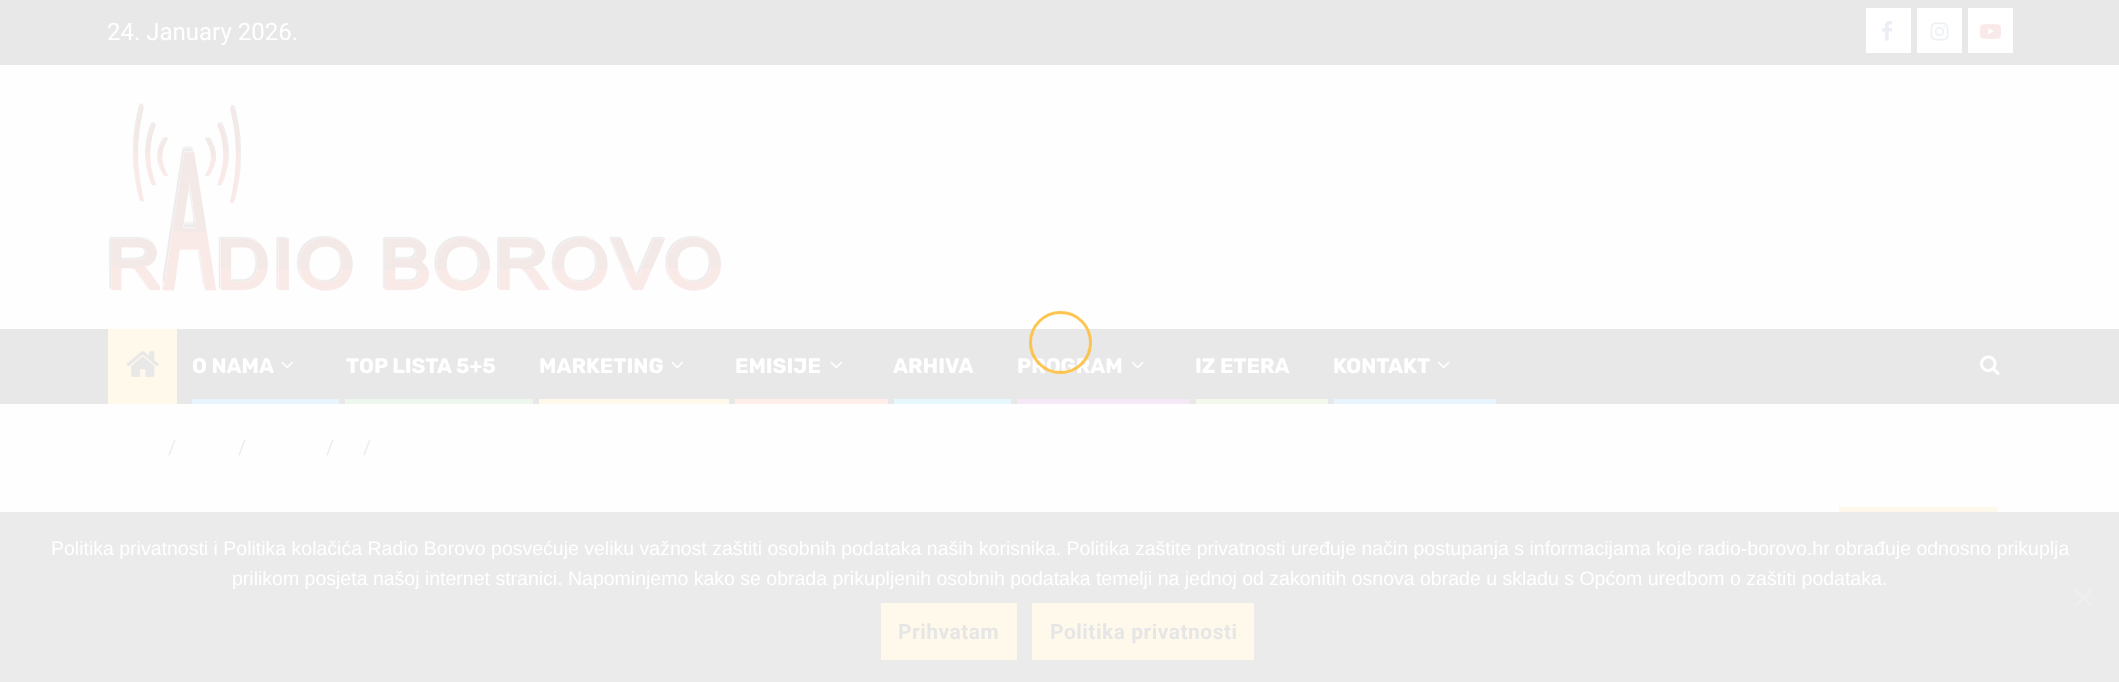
<svg xmlns="http://www.w3.org/2000/svg" width="2119" height="682" viewBox="0 0 2119 682">
  <rect width="100%" height="100%" fill="#fefefe"/>
  <path d="M0 0h2119v65H0z" fill="#e8e8e8"/>
  <path d="M1866 8h45v45H1866z" fill="#fff"/>
  <image x="1882" y="21" width="11" height="20" href="img/1.png"/>
  <path d="M1917 8h45v45H1917z" fill="#fff"/>
  <image x="1930" y="22" width="19" height="19" href="img/2.png"/>
  <path d="M1968 8h45v45H1968z" fill="#fff"/>
  <image x="1980" y="24" width="21" height="15" href="img/3.png"/>
  <image x="108" y="103" width="614" height="188" href="img/4.png"/>
  <path d="M0 329h2119v75H0z" fill="#e8e8e8"/>
  <path d="M108 329h69v75H108z" fill="#fff9ec"/>
  <image x="126" y="351" width="33" height="26" href="img/5.png"/>
  <image x="281" y="361" width="13" height="8" href="img/6.png"/>
  <path d="M192 399h147v5H192z" fill="#e9f5fe"/>
  <path d="M345 399h188v5H345z" fill="#edf7ee"/>
  <image x="671" y="361" width="13" height="8" href="img/6.png"/>
  <path d="M539 399h190v5H539z" fill="#fff9ec"/>
  <image x="830" y="361" width="13" height="8" href="img/6.png"/>
  <path d="M735 399h153v5H735z" fill="#ffeee9"/>
  <path d="M894 399h117v5H894z" fill="#e6f8fb"/>
  <image x="1131" y="361" width="13" height="8" href="img/7.png"/>
  <path d="M1017 399h173v5H1017z" fill="#f5e9f7"/>
  <path d="M1196 399h132v5H1196z" fill="#f3f9ed"/>
  <image x="1437" y="361" width="13" height="8" href="img/7.png"/>
  <path d="M1334 399h162v5H1334z" fill="#e9f5fe"/>
  <image x="1980" y="355" width="20" height="20" href="img/8.png"/>
  <path d="M1839 507h159v5H1839z" fill="#fff9ec"/>
  <path d="M0 512h2119v170H0z" fill="#ebebeb"/>
  <path d="M2090.5 588.5L2092.5 591L2076.5 607L2074.5 604.5Z" fill="#eeeeef"/>
  <path d="M2074.5 591L2076.5 588.5L2092.5 604.5L2090.5 607Z" fill="#eeeeef"/>
  <path d="M881 603h136v57H881z" fill="#fff9ec"/>
  <path d="M1032 603h222v57H1032z" fill="#fff9ec"/>
  <text x="107" y="40" font-family="Roboto" font-size="24" fill="#fff">24. January 2026.</text>
  <g font-family="Rubik" font-size="21" font-weight="bold" fill="#fff">
    <text x="192" y="373">O NAMA</text>
    <text x="346" y="373">TOP LISTA 5+5</text>
    <text x="539" y="373">MARKETING</text>
    <text x="735" y="373">EMISIJE</text>
    <text x="893" y="373">ARHIVA</text>
    <text x="1017" y="373">PROGRAM</text>
    <text x="1195" y="373">IZ ETERA</text>
    <text x="1333" y="373">KONTAKT</text>
  </g>
  <g font-family="Roboto" font-size="19.5" fill="#ebeced">
    <text x="168" y="454">/</text>
    <text x="238" y="454">/</text>
    <text x="326" y="454">/</text>
    <text x="363" y="454">/</text>
  </g>
  <g font-family="Liberation Sans" font-size="19.5" fill="#fff">
    <text x="51" y="555">Politika privatnosti i Politika kolačića Radio Borovo posvećuje veliku važnost zaštiti osobnih podataka naših korisnika. Politika zaštite privatnosti uređuje način postupanja s informacijama koje radio-borovo.hr obrađuje odnosno prikuplja</text>
    <text x="232" y="585">prilikom posjeta našoj internet stranici. Napominjemo kako se obrada prikupljenih osobnih podataka temelji na jednoj od zakonitih osnova obrade u skladu s Općom uredbom o zaštiti podataka.</text>
  </g>
  <g font-family="Roboto" font-size="21" font-weight="bold" letter-spacing="0.5" fill="#e6e6e6">
    <text x="898" y="639">Prihvatam</text>
    <text x="1050" y="639">Politika privatnosti</text>
  </g>
  <circle cx="1060.5" cy="342.5" r="30" fill="none" stroke="#ffbf3fe6" stroke-width="3"/>
</svg>
